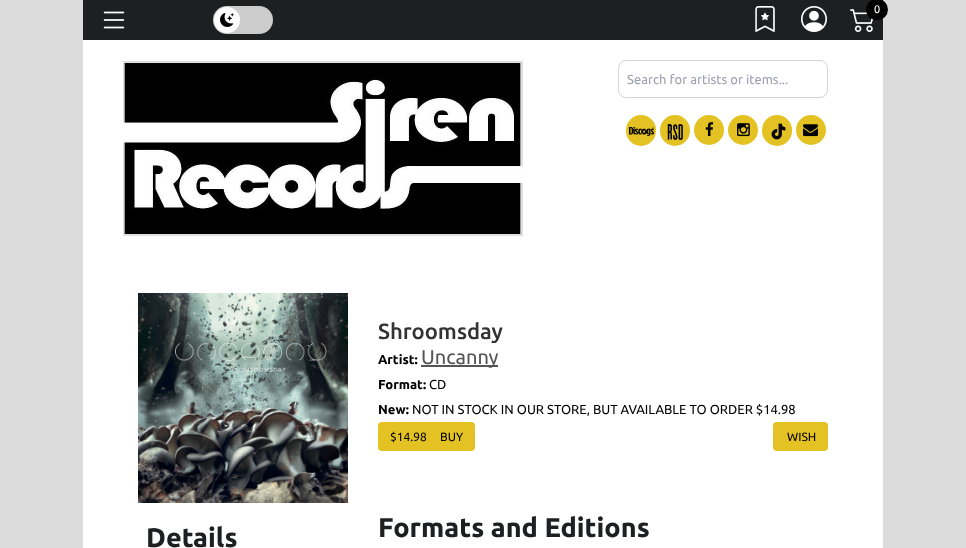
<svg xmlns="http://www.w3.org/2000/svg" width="966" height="548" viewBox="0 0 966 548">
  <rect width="100%" height="100%" fill="#dcdcdc"/>
  <path d="M83 40h800v508H83z" fill="#fff"/>
  <path d="M83 0h800v40H83z" fill="#1d1f20"/>
  <image x="103" y="11" width="22" height="18" href="img/1.png"/>
  <rect x="213" y="6" width="60" height="28" rx="14" fill="#ccc"/>
  <circle cx="227" cy="20" r="13" fill="#fff"/>
  <image x="220" y="13" width="14" height="14" href="img/2.png"/>
  <image x="755" y="6" width="20" height="26" href="img/3.png"/>
  <image x="801" y="6" width="26" height="26" href="img/4.png"/>
  <image x="850" y="9" width="23" height="23" href="img/5.png"/>
  <rect x="866" y="-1" width="22" height="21" rx="10.5" fill="#000"/>
  <image x="123" y="61" width="400" height="175" href="img/6.png"/>
  <rect x="618.5" y="60.5" width="209" height="37" rx="7.5" fill="none" stroke="#d1d5db"/>
  <rect x="626" y="115" width="30" height="31" rx="15" fill="#e4c223"/>
  <image x="629" y="127" width="25" height="9" href="img/7.png"/>
  <rect x="660" y="115" width="30" height="31" rx="15" fill="#e4c223"/>
  <image x="667" y="124" width="16" height="16" href="img/8.png"/>
  <circle cx="709" cy="130" r="15" fill="#e4c223"/>
  <image x="705" y="122" width="9" height="15" href="img/9.png"/>
  <circle cx="743" cy="130" r="15" fill="#e4c223"/>
  <image x="737" y="123" width="13" height="14" href="img/10.png"/>
  <rect x="762" y="115" width="30" height="31" rx="15" fill="#e4c223"/>
  <image x="771" y="123" width="15" height="17" href="img/11.png"/>
  <circle cx="811" cy="130" r="15" fill="#e4c223"/>
  <image x="803" y="124" width="15" height="13" href="img/12.png"/>
  <image x="138" y="293" width="210" height="210" href="img/13.png"/>
  <path d="M421 365h77v2H421z" fill="#555"/>
  <rect x="378" y="422" width="97" height="29" rx="4" fill="#e4c223"/>
  <rect x="773" y="422" width="55" height="29" rx="4" fill="#e4c223"/>
  <text x="874" y="13" font-family="Ubuntu" font-size="11" fill="#fff">0</text>
  <text x="627" y="84" font-family="Ubuntu" font-size="13" fill="#9ca3af">Search for artists or items...</text>
  <text x="146" y="547" font-family="Ubuntu" font-size="27" font-weight="bold" fill="#1d1f20">Details</text>
  <text x="378" y="339" font-family="Ubuntu" font-size="22" font-weight="500" fill="#333">Shroomsday</text>
  <text x="378" y="364" font-family="Ubuntu" font-size="13" font-weight="bold" fill="#000">Artist:</text>
  <text x="421" y="364" font-family="Ubuntu" font-size="20" fill="#555">Uncanny</text>
  <text x="378" y="389" font-family="Ubuntu" font-size="13" font-weight="bold" fill="#000">Format:</text>
  <text x="429" y="389" font-family="Ubuntu" font-size="13" fill="#000">CD</text>
  <text x="378" y="414" font-family="Ubuntu" font-size="13" font-weight="bold" fill="#000">New:</text>
  <text x="412" y="414" font-family="Ubuntu" font-size="13" fill="#000">NOT IN STOCK IN OUR STORE, BUT AVAILABLE TO ORDER $14.98</text>
  <g font-family="Ubuntu" font-size="12" fill="#000">
    <text x="390" y="441">$14.98</text>
    <text x="440" y="441">BUY</text>
    <text x="787" y="441">WISH</text>
  </g>
  <text x="378" y="537" font-family="Ubuntu" font-size="27" font-weight="bold" fill="#1d1f20">Formats and Editions</text>
</svg>
